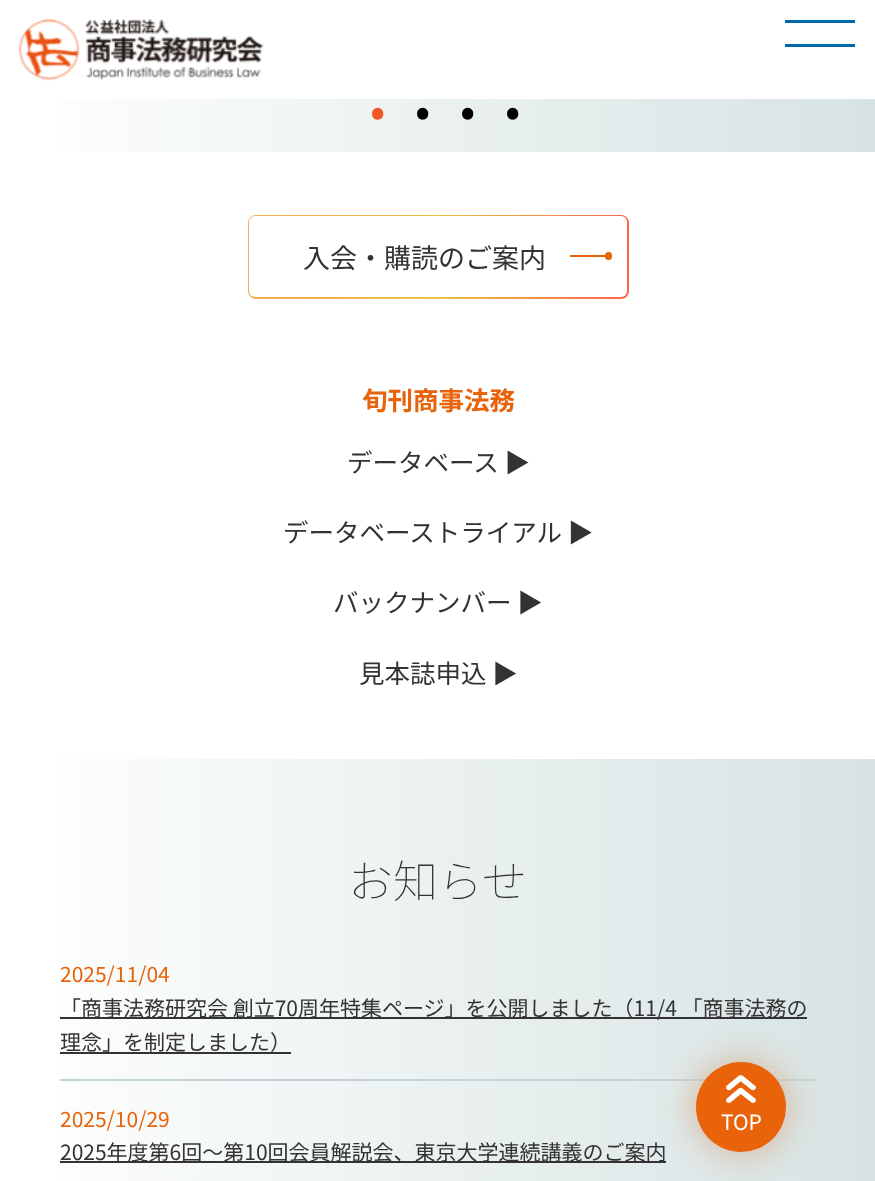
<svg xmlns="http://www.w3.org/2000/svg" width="875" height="1181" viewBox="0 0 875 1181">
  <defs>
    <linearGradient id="g1" gradientUnits="userSpaceOnUse" x1="0" y1="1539" x2="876" y2="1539"><stop offset="0" stop-color="#fff"/><stop offset="1" stop-color="#d7e3e3"/></linearGradient>
    <linearGradient id="g2" gradientUnits="userSpaceOnUse" x1="248" y1="257" x2="629" y2="257"><stop offset="0" stop-color="#f9aa58"/><stop offset="0.5" stop-color="#e7c23f"/><stop offset="1" stop-color="#fd644f"/></linearGradient>
  </defs>
  <rect width="100%" height="100%" fill="#fff"/>
  <image x="18" y="19" width="246" height="62" href="img/1.png"/>
  <path d="M785 20h70v3H785z" fill="#0068af"/>
  <path d="M785 44h70v3H785z" fill="#0068af"/>
  <path d="M55 99h820v1082H55z" fill="url(#g1)"/>
  <path d="M55 152h820v607H55z" fill="#fff"/>
  <rect x="248" y="215" width="381" height="84" rx="8" fill="url(#g2)"/>
  <rect x="249" y="216" width="378" height="81" rx="6" fill="#fff"/>
  <rect x="605" y="252" width="7" height="8" rx="3.5" fill="#e8630a"/>
  <path d="M570 255h38v2H570z" fill="#e8630a"/>
  <path d="M60 1079h756v2H60z" fill="#c3d4d4"/>
  <path d="M60 1017h747v2H60z" fill="#333"/>
  <path d="M60 1052h231v2H60z" fill="#333"/>
  <path d="M60 1161h606v2H60z" fill="#333"/>
  <rect x="690" y="1056" width="102" height="102" rx="51" fill="#d6b196b5" filter="blur(15px)"/>
  <circle cx="741" cy="1107" r="45" fill="#e8630a"/>
  <image x="726" y="1075" width="30" height="28" href="img/2.png"/>
  <text x="370" y="127" font-family="Noto Sans JP" font-size="45" fill="#f15a22">•</text>
  <g font-family="Noto Sans JP" font-size="45" fill="#000">
    <text x="415" y="127">•</text>
    <text x="460" y="127">•</text>
    <text x="505" y="127">•</text>
  </g>
  <text x="303" y="268" font-family="Noto Sans JP" font-size="27" fill="#333">入会・購読のご案内</text>
  <text x="362" y="410" font-family="Noto Sans JP" font-size="25.5" font-weight="bold" fill="#e8630a">旬刊商事法務</text>
  <g font-family="Noto Sans JP" font-size="25.5" fill="#333">
    <text x="347" y="472">データベース ▶</text>
    <text x="283" y="542">データベーストライアル ▶</text>
    <text x="333" y="612">バックナンバー ▶</text>
    <text x="359" y="683">見本誌申込 ▶</text>
  </g>
  <text x="348" y="898" font-family="Noto Sans JP" font-size="45" font-weight="100" fill="#333">お知らせ</text>
  <text x="60" y="982" font-family="Noto Sans JP" font-size="21" fill="#e8630a">2025/11/04</text>
  <g font-family="Noto Sans JP" font-size="21" fill="#333">
    <text x="60" y="1016">「商事法務研究会 創立70周年特集ページ」を公開しました（11/4 「商事法務の</text>
    <text x="60" y="1050">理念」を制定しました）</text>
  </g>
  <text x="60" y="1127" font-family="Noto Sans JP" font-size="21" fill="#e8630a">2025/10/29</text>
  <text x="60" y="1160" font-family="Noto Sans JP" font-size="21" fill="#333">2025年度第6回～第10回会員解説会、東京大学連続講義のご案内</text>
  <text x="721" y="1130" font-family="Noto Sans JP" font-size="21" fill="#fff">TOP</text>
</svg>
